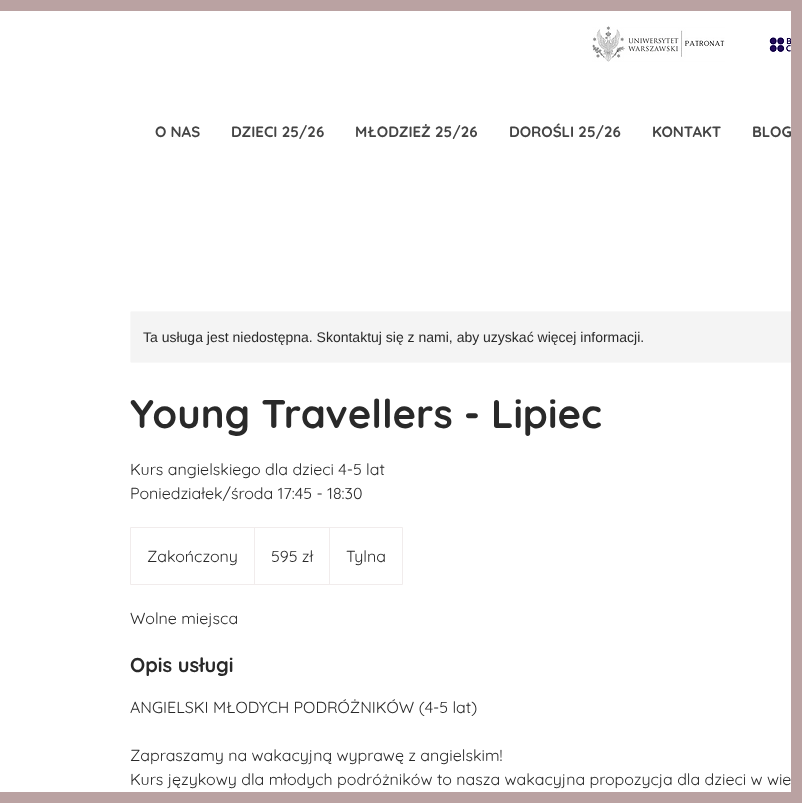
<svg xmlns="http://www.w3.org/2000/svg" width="802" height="803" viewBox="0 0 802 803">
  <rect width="100%" height="100%" fill="#fff"/>
  <path d="M0 0h791v11H0z" fill="#baa2a2"/>
  <image x="592" y="26" width="133" height="36" href="img/1.png"/>
  <image x="769" y="37" width="22" height="15" href="img/2.png"/>
  <rect x="130.5" y="311.5" width="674" height="51" rx="1.5" fill="#f4f4f4" stroke="#f8f8f8"/>
  <path d="M130.5 527.5h272v57H130.5z" fill="none" stroke="#f1ecec"/>
  <path d="M254 584V527L255 528V584Z" fill="#f1ecec"/>
  <path d="M329 584V527L330 528V584Z" fill="#f1ecec"/>
  <path d="M0 792h802v11H0z" fill="#baa2a2"/>
  <g font-family="Quicksand" font-size="15" font-weight="bold" fill="#444">
    <text x="155" y="137">O NAS</text>
    <text x="231" y="137">DZIECI 25/26</text>
    <text x="355" y="137">MŁODZIEŻ 25/26</text>
    <text x="509" y="137">DOROŚLI 25/26</text>
    <text x="652" y="137">KONTAKT</text>
    <text x="752" y="137">BLOG</text>
  </g>
  <path d="M791 0h11v792H791z" fill="#baa2a2"/>
  <text x="143" y="342" font-family="Liberation Sans" font-size="14" fill="#292929">Ta usługa jest niedostępna. Skontaktuj się z nami, aby uzyskać więcej informacji.</text>
  <text x="130" y="428" font-family="Quicksand" font-size="40" font-weight="bold" fill="#292929">Young Travellers - Lipiec</text>
  <g font-family="Quicksand" font-size="16" fill="#292929">
    <text x="130" y="475">Kurs angielskiego dla dzieci 4-5 lat</text>
    <text x="130" y="499">Poniedziałek/środa 17:45 - 18:30</text>
    <text x="147" y="562">Zakończony</text>
    <text x="271" y="562">595 zł</text>
    <text x="346" y="562">Tylna</text>
    <text x="130" y="624">Wolne miejsca</text>
  </g>
  <text x="130" y="672" font-family="Quicksand" font-size="20" font-weight="bold" fill="#292929">Opis usługi</text>
  <g font-family="Quicksand" font-size="16" fill="#292929">
    <text x="130" y="713">ANGIELSKI MŁODYCH PODRÓŻNIKÓW (4-5 lat)</text>
    <text x="130" y="761">Zapraszamy na wakacyjną wyprawę z angielskim!</text>
    <text x="130" y="785">Kurs językowy dla młodych podróżników to nasza wakacyjna propozycja dla dzieci w wie</text>
  </g>
</svg>
